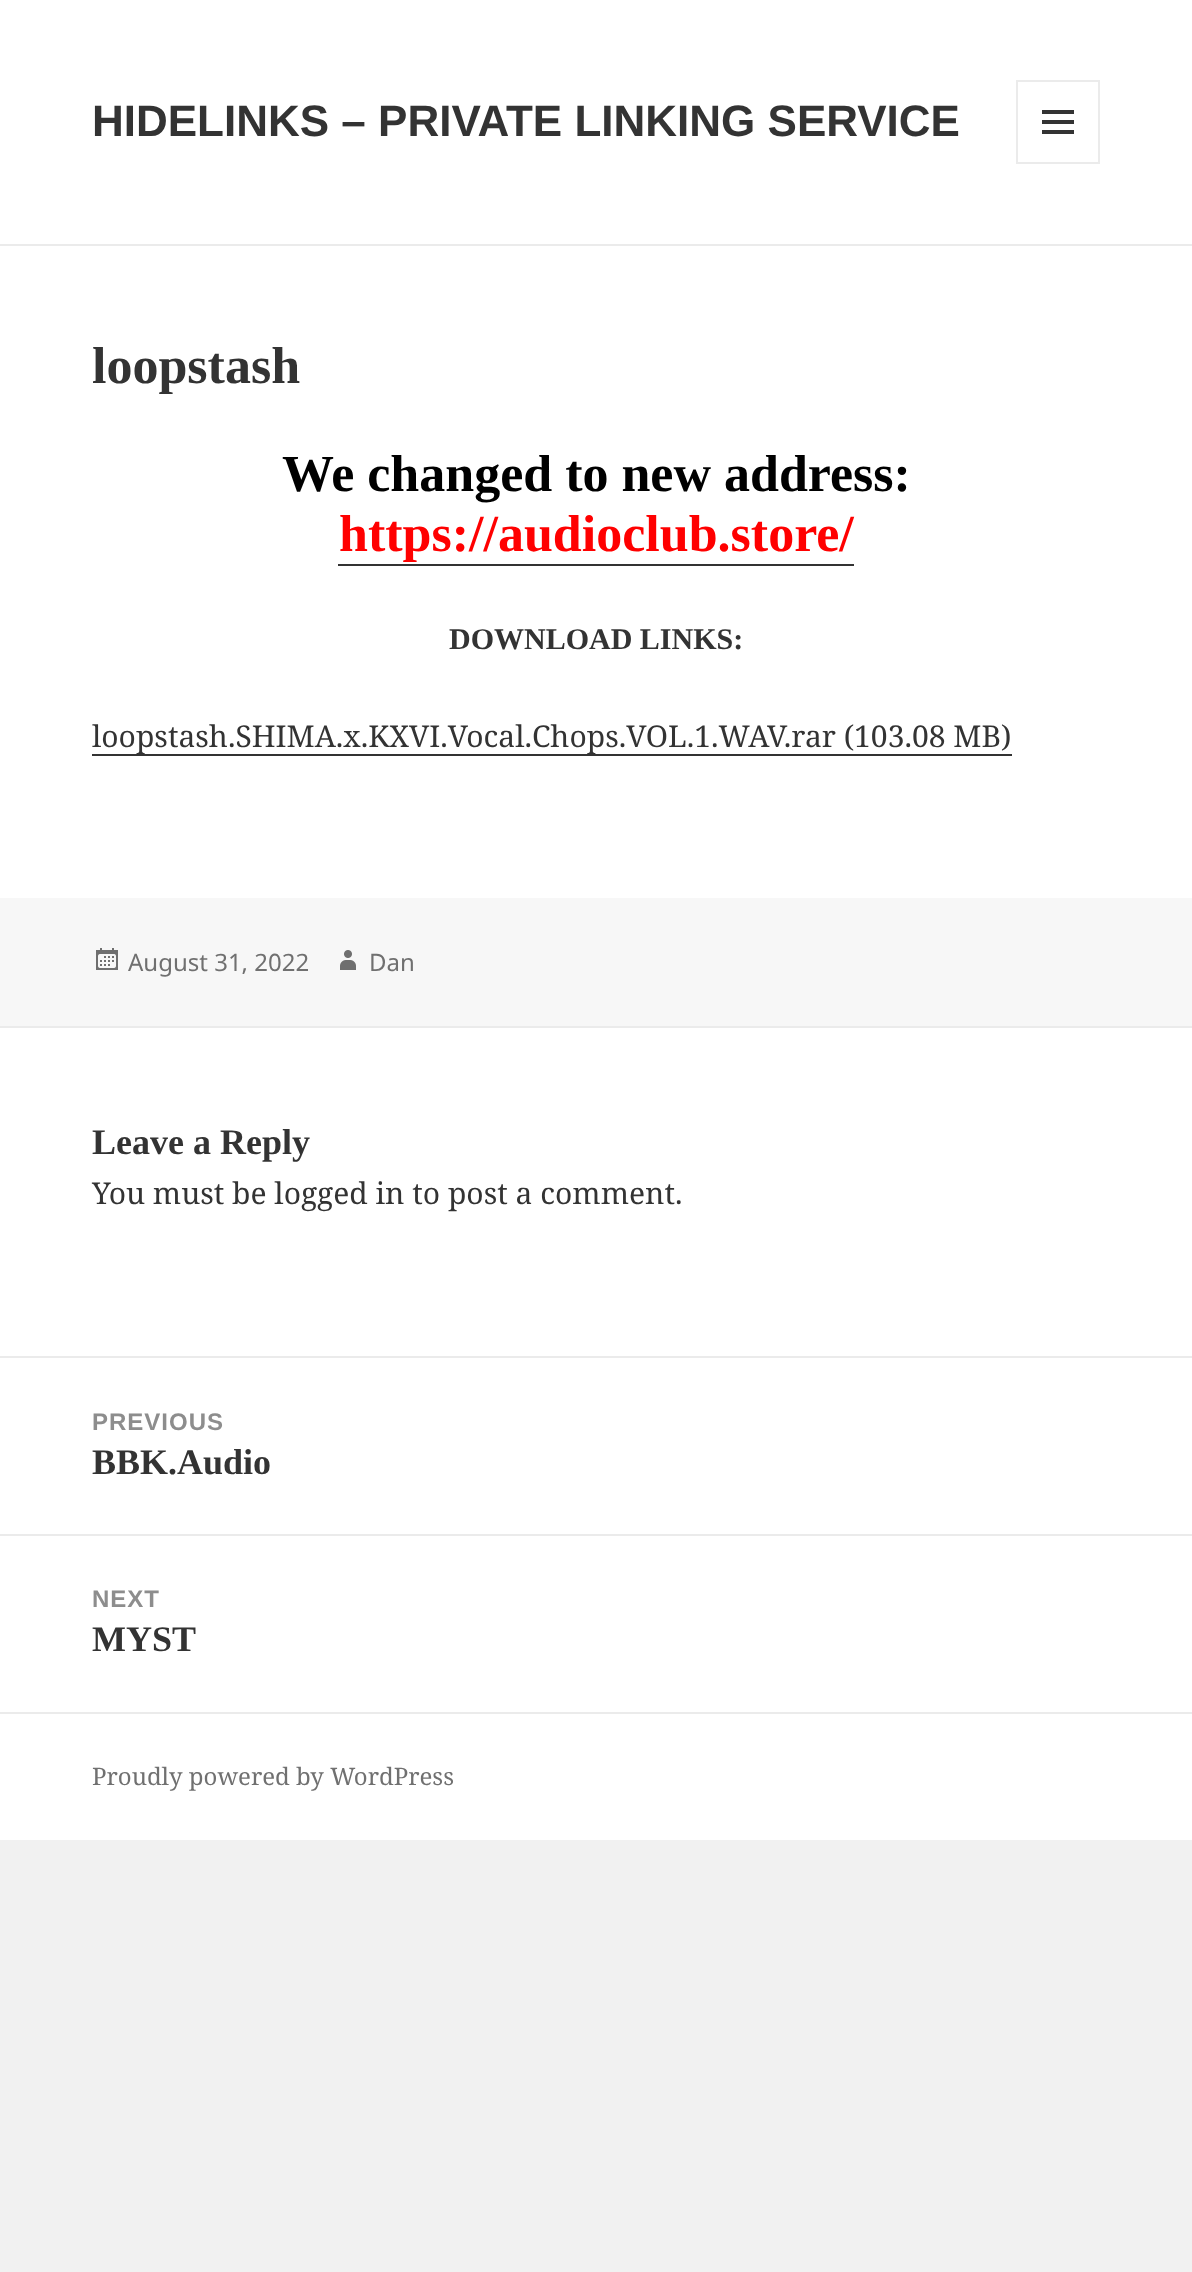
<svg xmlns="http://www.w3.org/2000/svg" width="1192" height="2272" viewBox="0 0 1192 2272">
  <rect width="100%" height="100%" fill="#f1f1f1"/>
  <path d="M0 0h1192v244H0z" fill="#fff"/>
  <path d="M0 244h1192v2H0z" fill="#ebebeb"/>
  <path d="M1017 81h82v82H1017z" fill="none" stroke="#ebebeb" stroke-width="2"/>
  <image x="1042" y="110" width="32" height="24" href="img/1.png"/>
  <path d="M0 246h1192v652H0z" fill="#fff"/>
  <path d="M338 564h516v2H338z" fill="#333"/>
  <path d="M92 754h920v2H92z" fill="#333"/>
  <path d="M0 898h1192v128H0z" fill="#f7f7f7"/>
  <image x="96" y="948" width="22" height="22" href="img/2.png"/>
  <image x="340" y="950" width="16" height="20" href="img/3.png"/>
  <path d="M0 1028h1192v328H0z" fill="#fff"/>
  <path d="M0 1026h1192v2H0z" fill="#ebebeb"/>
  <path d="M0 1358h1192v354H0z" fill="#fff"/>
  <path d="M0 1356h1192v2H0z" fill="#ebebeb"/>
  <path d="M0 1534h1192v2H0z" fill="#ebebeb"/>
  <path d="M0 1714h1192v126H0z" fill="#fff"/>
  <path d="M0 1712h1192v2H0z" fill="#ebebeb"/>
  <text x="92" y="136" font-family="Liberation Sans" font-size="44" font-weight="bold" fill="#333">HIDELINKS – PRIVATE LINKING SERVICE</text>
  <text x="92" y="383" font-family="Liberation Serif" font-size="52" font-weight="bold" fill="#333">loopstash</text>
  <text x="282" y="491" font-family="Liberation Serif" font-size="52" font-weight="bold" fill="#000">We changed to new address:</text>
  <text x="339" y="551" font-family="Liberation Serif" font-size="52" font-weight="bold" fill="#f00">https://audioclub.store/</text>
  <text x="449" y="649" font-family="Liberation Serif" font-size="30" font-weight="bold" fill="#333">DOWNLOAD LINKS:</text>
  <text x="92" y="747" font-family="Noto Serif" font-size="30" fill="#333">loopstash.SHIMA.x.KXVI.Vocal.Chops.VOL.1.WAV.rar (103.08 MB)</text>
  <g font-family="Noto Sans" font-size="24" fill="#707070">
    <text x="128" y="971">August 31, 2022</text>
    <text x="369" y="971">Dan</text>
  </g>
  <text x="92" y="1154" font-family="Liberation Serif" font-size="36" font-weight="bold" fill="#333">Leave a Reply</text>
  <text x="92" y="1204" font-family="Noto Serif" font-size="30" fill="#333">You must be logged in to post a comment.</text>
  <text x="92" y="1430" font-family="Liberation Sans" font-size="24" font-weight="bold" letter-spacing="1" fill="#8d8d8d">PREVIOUS</text>
  <text x="92" y="1474" font-family="Liberation Serif" font-size="36" font-weight="bold" fill="#333">BBK.Audio</text>
  <text x="92" y="1607" font-family="Liberation Sans" font-size="24" font-weight="bold" letter-spacing="1" fill="#8d8d8d">NEXT</text>
  <text x="92" y="1651" font-family="Liberation Serif" font-size="36" font-weight="bold" fill="#333">MYST</text>
  <text x="92" y="1785" font-family="Noto Serif" font-size="24" fill="#707070">Proudly powered by WordPress</text>
</svg>
